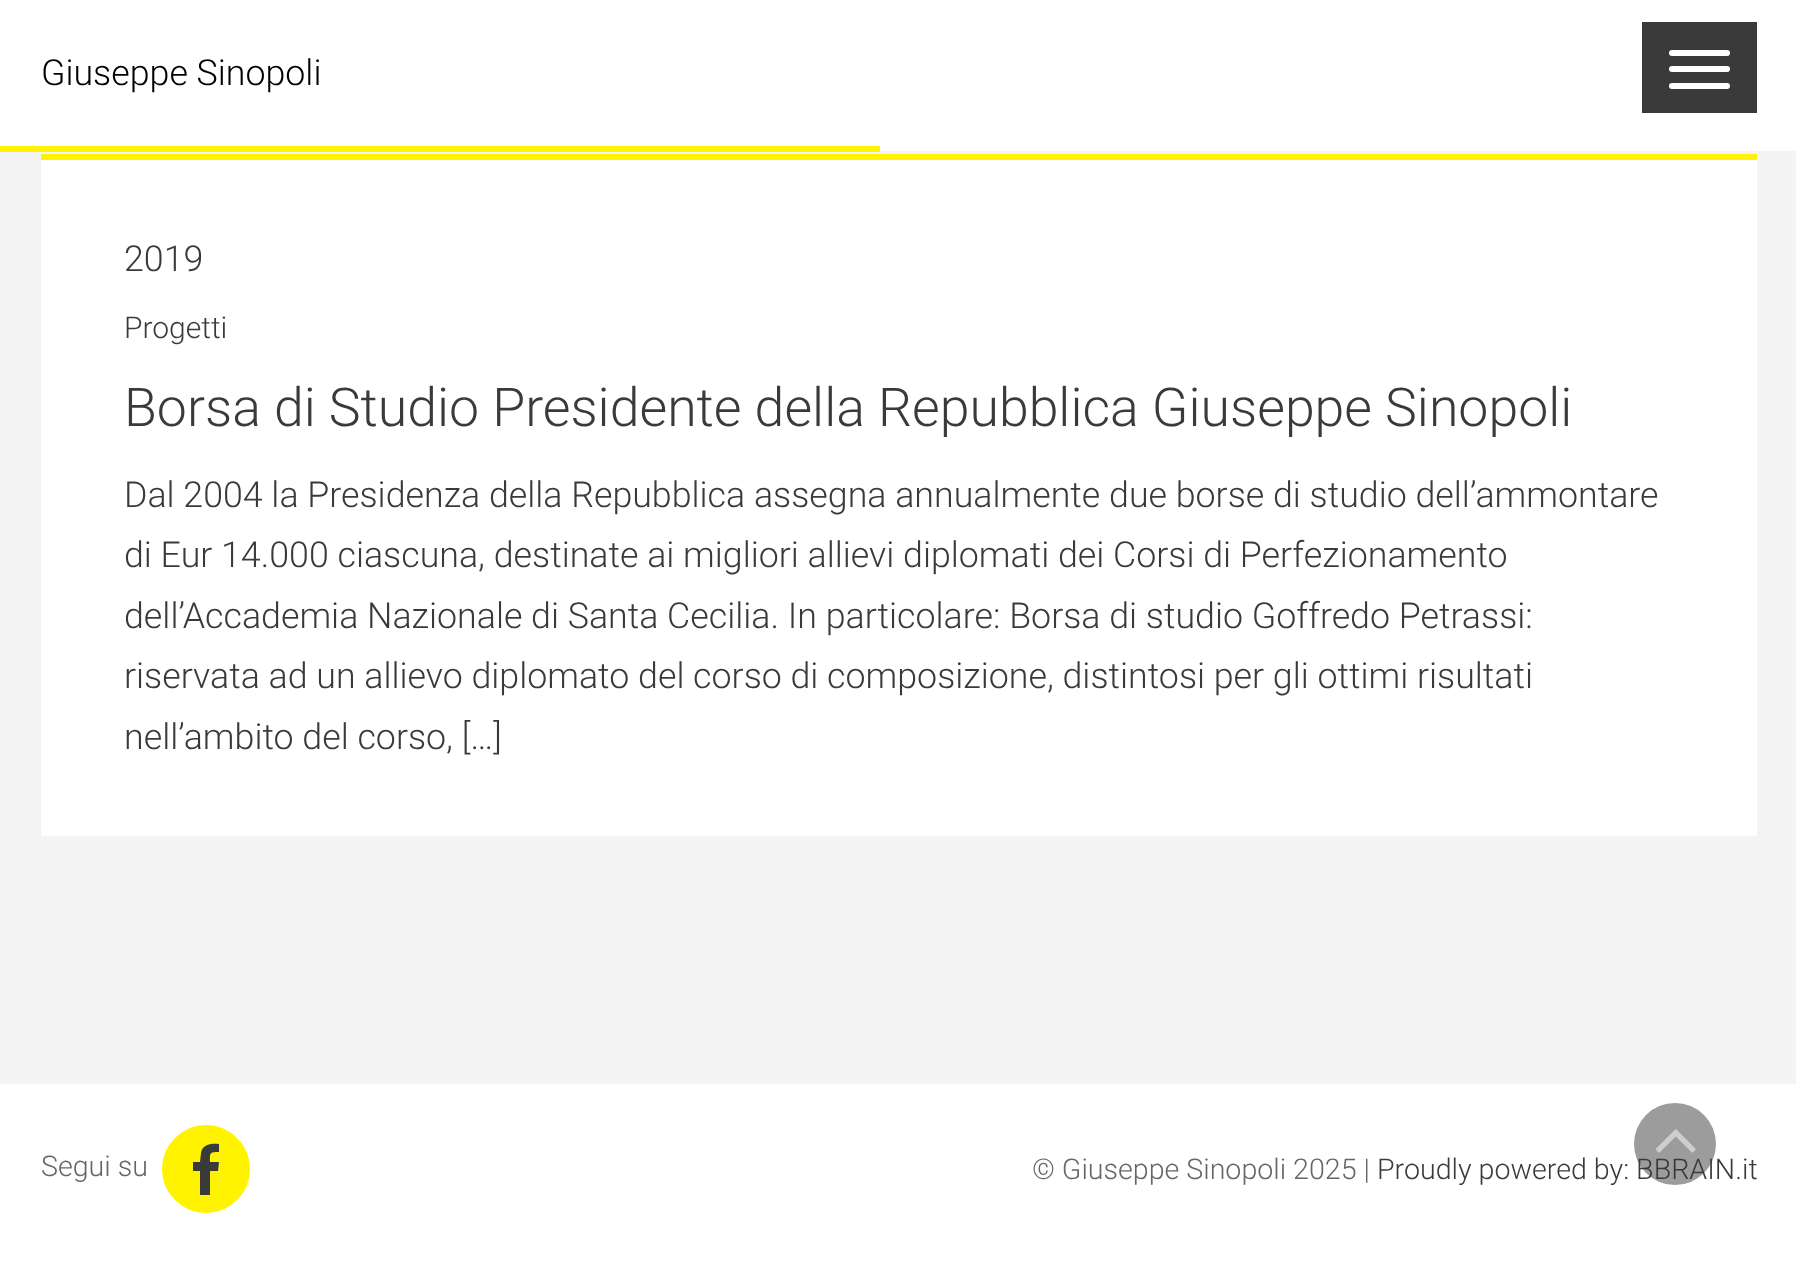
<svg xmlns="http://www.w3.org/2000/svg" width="1796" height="1267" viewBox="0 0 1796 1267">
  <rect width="100%" height="100%" fill="#f4f4f4"/>
  <path d="M0 0h1796v151H0z" fill="#fff"/>
  <path d="M0 146h880v6H0z" fill="#fff300"/>
  <path d="M1642 22h115v91H1642z" fill="#3a3a3a"/>
  <rect x="1669" y="50" width="61" height="6" rx="3" fill="#fff"/>
  <rect x="1669" y="66" width="61" height="6" rx="3" fill="#fff"/>
  <rect x="1669" y="83" width="61" height="6" rx="3" fill="#fff"/>
  <path d="M41 160h1716v676H41z" fill="#fff"/>
  <path d="M41 154h1716v6H41z" fill="#fff300"/>
  <path d="M0 1084h1796v183H0z" fill="#fff"/>
  <circle cx="206" cy="1169" r="40" fill="#fff300" stroke="#fff300" stroke-width="8"/>
  <path d="M219 1144V1152C209 1152 210 1153 210 1162H219L218 1171H210V1195H200V1171H193V1162H200L201 1153C202 1144 212 1143 219 1144Z" fill="#3a3a3a"/>
  <text x="41" y="85" font-family="Roboto" font-size="35.75" font-weight="300" fill="#000">Giuseppe Sinopoli</text>
  <text x="124" y="271" font-family="Roboto" font-size="35.75" font-weight="300" fill="#3a3a3a">2019</text>
  <text x="124" y="338" font-family="Roboto" font-size="30" font-weight="300" fill="#3a3a3a">Progetti</text>
  <text x="124" y="426" font-family="Roboto" font-size="53.6" font-weight="300" fill="#3a3a3a">Borsa di Studio Presidente della Repubblica Giuseppe Sinopoli</text>
  <g font-family="Roboto" font-size="35.75" font-weight="300" fill="#3a3a3a">
    <text x="124" y="507">Dal 2004 la Presidenza della Repubblica assegna annualmente due borse di studio dell’ammontare</text>
    <text x="124" y="567">di Eur 14.000 ciascuna, destinate ai migliori allievi diplomati dei Corsi di Perfezionamento</text>
    <text x="124" y="628">dell’Accademia Nazionale di Santa Cecilia. In particolare: Borsa di studio Goffredo Petrassi:</text>
    <text x="124" y="688">riservata ad un allievo diplomato del corso di composizione, distintosi per gli ottimi risultati</text>
    <text x="124" y="749">nell’ambito del corso, […]</text>
  </g>
  <g font-family="Roboto" font-size="28.6" font-weight="300" fill="#666">
    <text x="41" y="1176">Segui su</text>
    <text x="1032" y="1179">© Giuseppe Sinopoli 2025 |</text>
  </g>
  <text x="1377" y="1179" font-family="Roboto" font-size="28.6" font-weight="300" fill="#3a3a3a">Proudly powered by: BBRAIN.it</text>
  <circle cx="1675" cy="1144" r="41" fill="#3a3a3a80"/>
  <image x="1655" y="1129" width="41" height="24" href="img/1.png"/>
</svg>
